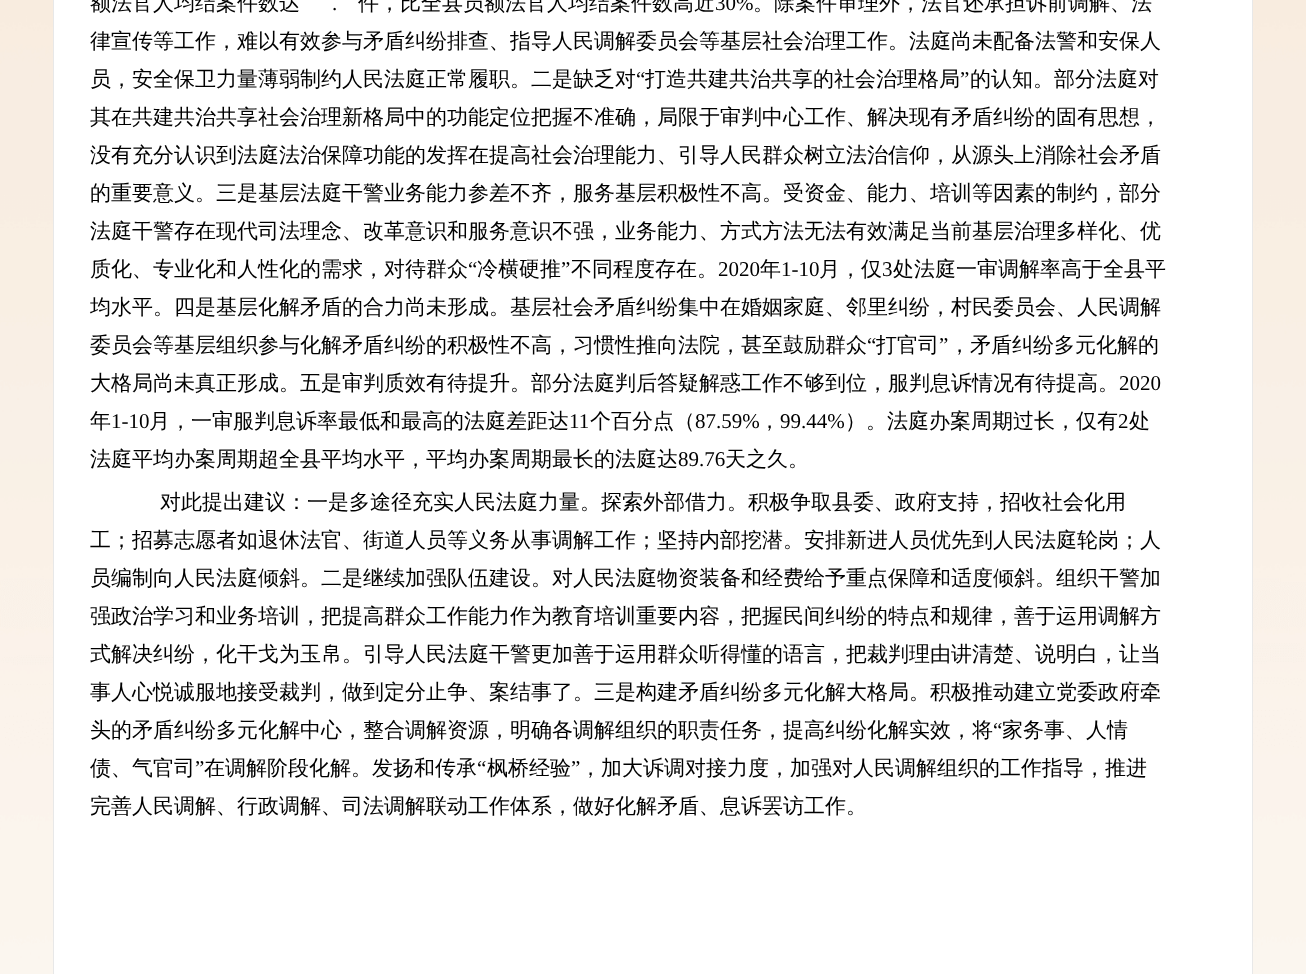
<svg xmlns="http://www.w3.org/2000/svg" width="1306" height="974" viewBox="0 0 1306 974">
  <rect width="100%" height="100%" fill="#fff"/>
  <image x="0" y="0" width="1306" height="974" href="img/1.png"/>
  <path d="M53.5 -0.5h1199v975H53.5z" fill="#fff" stroke="#e8e8e8"/>
  <text x="90" y="10" font-family="WenQuanYi Zen Hei" font-size="21" font-weight="500" fill="#000">额法官人均结案件数达</text>
  <text x="332" y="10" font-family="Liberation Serif" font-size="21" fill="#000">.</text>
  <text x="358" y="10" font-family="WenQuanYi Zen Hei" font-size="21" font-weight="500" fill="#000">件，比全县员额法官人均结案件数高近</text>
  <text x="715" y="10" font-family="Liberation Serif" font-size="21" fill="#000">30%</text>
  <g font-family="WenQuanYi Zen Hei" font-size="21" font-weight="500" fill="#000">
    <text x="753" y="10">。除案件审理外，法官还承担诉前调解、法</text>
    <text x="90" y="48">律宣传等工作，难以有效参与矛盾纠纷排查、指导人民调解委员会等基层社会治理工作。法庭尚未配备法警和安保人</text>
    <text x="90" y="86">员，安全保卫力量薄弱制约人民法庭正常履职。二是缺乏对</text>
  </g>
  <text x="636" y="86" font-family="Liberation Serif" font-size="21" fill="#000">“</text>
  <text x="645" y="86" font-family="WenQuanYi Zen Hei" font-size="21" font-weight="500" fill="#000">打造共建共治共享的社会治理格局</text>
  <text x="960" y="86" font-family="Liberation Serif" font-size="21" fill="#000">”</text>
  <g font-family="WenQuanYi Zen Hei" font-size="21" font-weight="500" fill="#000">
    <text x="970" y="86">的认知。部分法庭对</text>
    <text x="90" y="124">其在共建共治共享社会治理新格局中的功能定位把握不准确，局限于审判中心工作、解决现有矛盾纠纷的固有思想，</text>
    <text x="90" y="162">没有充分认识到法庭法治保障功能的发挥在提高社会治理能力、引导人民群众树立法治信仰，从源头上消除社会矛盾</text>
    <text x="90" y="200">的重要意义。三是基层法庭干警业务能力参差不齐，服务基层积极性不高。受资金、能力、培训等因素的制约，部分</text>
    <text x="90" y="238">法庭干警存在现代司法理念、改革意识和服务意识不强，业务能力、方式方法无法有效满足当前基层治理多样化、优</text>
    <text x="90" y="276">质化、专业化和人性化的需求，对待群众</text>
  </g>
  <text x="468" y="276" font-family="Liberation Serif" font-size="21" fill="#000">“</text>
  <text x="477" y="276" font-family="WenQuanYi Zen Hei" font-size="21" font-weight="500" fill="#000">冷横硬推</text>
  <text x="561" y="276" font-family="Liberation Serif" font-size="21" fill="#000">”</text>
  <text x="571" y="276" font-family="WenQuanYi Zen Hei" font-size="21" font-weight="500" fill="#000">不同程度存在。</text>
  <text x="718" y="276" font-family="Liberation Serif" font-size="21" fill="#000">2020</text>
  <text x="760" y="276" font-family="WenQuanYi Zen Hei" font-size="21" font-weight="500" fill="#000">年</text>
  <text x="781" y="276" font-family="Liberation Serif" font-size="21" fill="#000">1-10</text>
  <text x="819" y="276" font-family="WenQuanYi Zen Hei" font-size="21" font-weight="500" fill="#000">月，仅</text>
  <text x="882" y="276" font-family="Liberation Serif" font-size="21" fill="#000">3</text>
  <g font-family="WenQuanYi Zen Hei" font-size="21" font-weight="500" fill="#000">
    <text x="893" y="276">处法庭一审调解率高于全县平</text>
    <text x="90" y="314">均水平。四是基层化解矛盾的合力尚未形成。基层社会矛盾纠纷集中在婚姻家庭、邻里纠纷，村民委员会、人民调解</text>
    <text x="90" y="352">委员会等基层组织参与化解矛盾纠纷的积极性不高，习惯性推向法院，甚至鼓励群众</text>
  </g>
  <text x="867" y="352" font-family="Liberation Serif" font-size="21" fill="#000">“</text>
  <text x="876" y="352" font-family="WenQuanYi Zen Hei" font-size="21" font-weight="500" fill="#000">打官司</text>
  <text x="939" y="352" font-family="Liberation Serif" font-size="21" fill="#000">”</text>
  <g font-family="WenQuanYi Zen Hei" font-size="21" font-weight="500" fill="#000">
    <text x="949" y="352">，矛盾纠纷多元化解的</text>
    <text x="90" y="390">大格局尚未真正形成。五是审判质效有待提升。部分法庭判后答疑解惑工作不够到位，服判息诉情况有待提高。</text>
  </g>
  <text x="1119" y="390" font-family="Liberation Serif" font-size="21" fill="#000">2020</text>
  <text x="90" y="428" font-family="WenQuanYi Zen Hei" font-size="21" font-weight="500" fill="#000">年</text>
  <text x="111" y="428" font-family="Liberation Serif" font-size="21" fill="#000">1-10</text>
  <text x="149" y="428" font-family="WenQuanYi Zen Hei" font-size="21" font-weight="500" fill="#000">月，一审服判息诉率最低和最高的法庭差距达</text>
  <text x="569" y="428" font-family="Liberation Serif" font-size="21" fill="#000">11</text>
  <text x="590" y="428" font-family="WenQuanYi Zen Hei" font-size="21" font-weight="500" fill="#000">个百分点（</text>
  <text x="695" y="428" font-family="Liberation Serif" font-size="21" fill="#000">87.59%</text>
  <text x="759" y="428" font-family="WenQuanYi Zen Hei" font-size="21" font-weight="500" fill="#000">，</text>
  <text x="780" y="428" font-family="Liberation Serif" font-size="21" fill="#000">99.44%</text>
  <text x="845" y="428" font-family="WenQuanYi Zen Hei" font-size="21" font-weight="500" fill="#000">）。法庭办案周期过长，仅有</text>
  <text x="1118" y="428" font-family="Liberation Serif" font-size="21" fill="#000">2</text>
  <g font-family="WenQuanYi Zen Hei" font-size="21" font-weight="500" fill="#000">
    <text x="1129" y="428">处</text>
    <text x="90" y="466">法庭平均办案周期超全县平均水平，平均办案周期最长的法庭达</text>
  </g>
  <text x="678" y="466" font-family="Liberation Serif" font-size="21" fill="#000">89.76</text>
  <g font-family="WenQuanYi Zen Hei" font-size="21" font-weight="500" fill="#000">
    <text x="725" y="466">天之久。</text>
    <text x="160" y="509">对此提出建议：一是多途径充实人民法庭力量。探索外部借力。积极争取县委、政府支持，招收社会化用</text>
    <text x="90" y="547">工；招募志愿者如退休法官、街道人员等义务从事调解工作；坚持内部挖潜。安排新进人员优先到人民法庭轮岗；人</text>
    <text x="90" y="585">员编制向人民法庭倾斜。二是继续加强队伍建设。对人民法庭物资装备和经费给予重点保障和适度倾斜。组织干警加</text>
    <text x="90" y="623">强政治学习和业务培训，把提高群众工作能力作为教育培训重要内容，把握民间纠纷的特点和规律，善于运用调解方</text>
    <text x="90" y="661">式解决纠纷，化干戈为玉帛。引导人民法庭干警更加善于运用群众听得懂的语言，把裁判理由讲清楚、说明白，让当</text>
    <text x="90" y="699">事人心悦诚服地接受裁判，做到定分止争、案结事了。三是构建矛盾纠纷多元化解大格局。积极推动建立党委政府牵</text>
    <text x="90" y="737">头的矛盾纠纷多元化解中心，整合调解资源，明确各调解组织的职责任务，提高纠纷化解实效，将</text>
  </g>
  <text x="993" y="737" font-family="Liberation Serif" font-size="21" fill="#000">“</text>
  <g font-family="WenQuanYi Zen Hei" font-size="21" font-weight="500" fill="#000">
    <text x="1002" y="737">家务事、人情</text>
    <text x="90" y="775">债、气官司</text>
  </g>
  <text x="195" y="775" font-family="Liberation Serif" font-size="21" fill="#000">”</text>
  <text x="204" y="775" font-family="WenQuanYi Zen Hei" font-size="21" font-weight="500" fill="#000">在调解阶段化解。发扬和传承</text>
  <text x="477" y="775" font-family="Liberation Serif" font-size="21" fill="#000">“</text>
  <text x="487" y="775" font-family="WenQuanYi Zen Hei" font-size="21" font-weight="500" fill="#000">枫桥经验</text>
  <text x="571" y="775" font-family="Liberation Serif" font-size="21" fill="#000">”</text>
  <g font-family="WenQuanYi Zen Hei" font-size="21" font-weight="500" fill="#000">
    <text x="580" y="775">，加大诉调对接力度，加强对人民调解组织的工作指导，推进</text>
    <text x="90" y="813">完善人民调解、行政调解、司法调解联动工作体系，做好化解矛盾、息诉罢访工作。</text>
  </g>
</svg>
